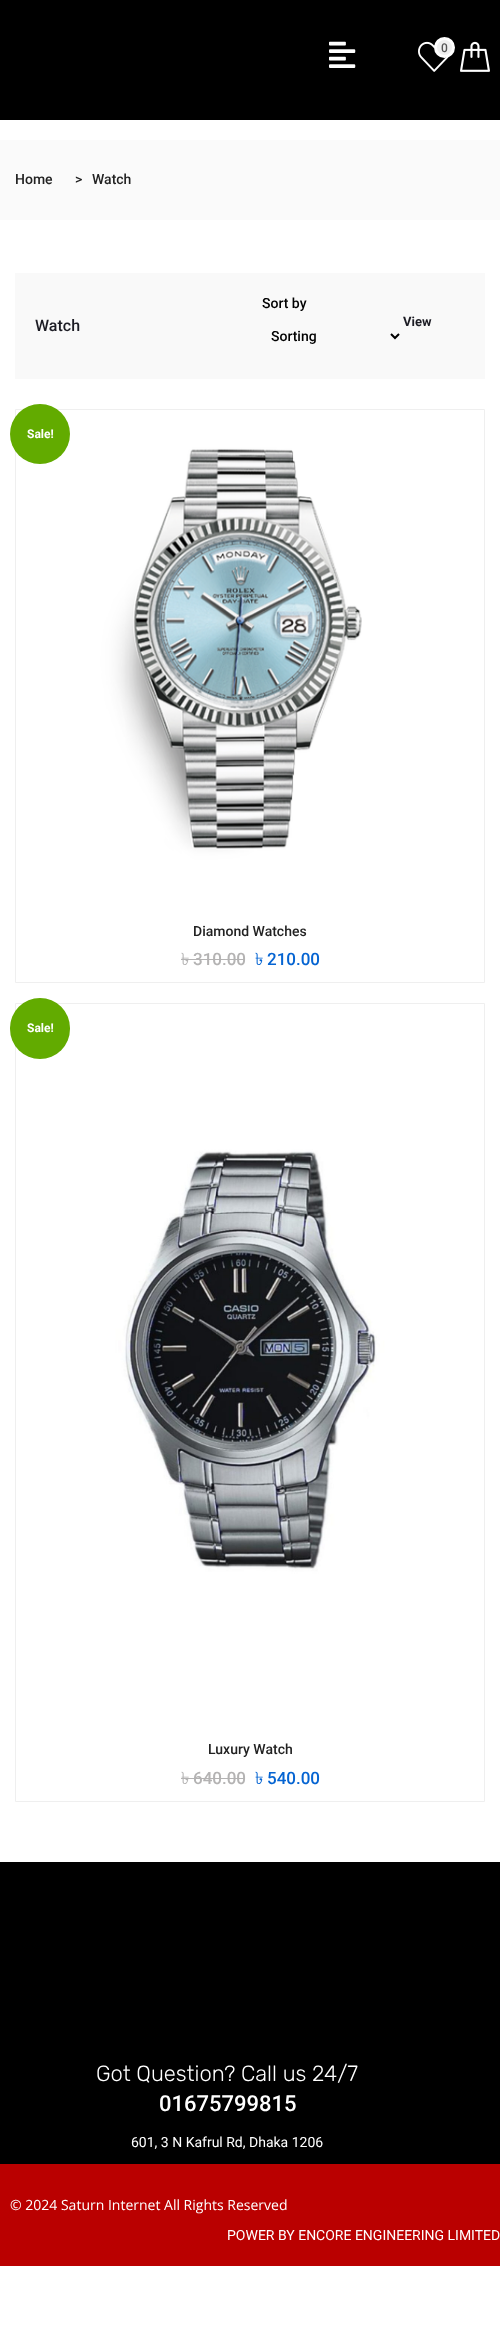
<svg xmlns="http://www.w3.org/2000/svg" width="500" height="2327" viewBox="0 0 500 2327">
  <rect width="100%" height="100%" fill="#fff"/>
  <path d="M0 0h500v120H0z" fill="#000"/>
  <image x="329" y="41" width="27" height="27" href="img/1.png"/>
  <image x="418" y="41" width="32" height="31" href="img/2.png"/>
  <circle cx="444.5" cy="47.5" r="9" fill="#f0f0f0" stroke="#fff" stroke-width="3"/>
  <image x="460" y="41" width="30" height="31" href="img/3.png"/>
  <path d="M0 140h500v80H0z" fill="#fafafa"/>
  <path d="M15 273h470v106H15z" fill="#f9f9f9"/>
  <path d="M391 334L395 338L399 334" fill="none" stroke="#000" stroke-width="2"/>
  <path d="M15.5 409.5h469v573H15.5z" fill="none" stroke="#efefef"/>
  <image x="26" y="430" width="448" height="448" href="img/4.png"/>
  <circle cx="40" cy="434" r="30" fill="#62ab00"/>
  <path d="M181 959h12v1H181z" fill="#b4b3b3"/>
  <path d="M193 959h52v1H193z" fill="#b4b3b3"/>
  <path d="M15.5 1003.5h469v798H15.5z" fill="none" stroke="#efefef"/>
  <image x="26" y="1024" width="448" height="672" href="img/5.png"/>
  <rect x="10" y="998" width="60" height="61" rx="30" fill="#62ab00"/>
  <path d="M181 1778h12v1H181z" fill="#b4b3b3"/>
  <path d="M193 1778h52v1H193z" fill="#b4b3b3"/>
  <path d="M0 1862h500v302H0z" fill="#000"/>
  <path d="M0 2164h500v102H0z" fill="#ba0000"/>
  <text x="441" y="52" font-family="Roboto" font-size="12" font-weight="500" fill="#565656">0</text>
  <g font-family="Roboto" font-size="14" font-weight="500" fill="#222">
    <text x="15" y="184">Home</text>
    <text x="75" y="184">&gt;</text>
    <text x="92" y="184">Watch</text>
  </g>
  <text x="35" y="331" font-family="Roboto" font-size="16" font-weight="500" fill="#1c1c24">Watch</text>
  <g font-family="Roboto" font-size="14" font-weight="500" fill="#000">
    <text x="262" y="308">Sort by</text>
    <text x="271" y="341">Sorting</text>
  </g>
  <text x="403" y="326" font-family="Roboto" font-size="13" font-weight="bold" fill="#1c1c24">View</text>
  <text x="27" y="438" font-family="Roboto" font-size="12" font-weight="bold" fill="#fff">Sale!</text>
  <text x="193" y="936" font-family="Roboto" font-size="14" font-weight="500" fill="#222">Diamond Watches</text>
  <text x="181" y="965" font-family="Lohit Bengali" font-size="17" fill="#b4b3b3">৳</text>
  <text x="193" y="965" font-family="Roboto" font-size="17" font-weight="500" fill="#b4b3b3">310.00</text>
  <text x="255" y="965" font-family="Lohit Bengali" font-size="17" fill="#0564d2">৳</text>
  <text x="267" y="965" font-family="Roboto" font-size="17" font-weight="500" fill="#0564d2">210.00</text>
  <text x="27" y="1032" font-family="Roboto" font-size="12" font-weight="bold" fill="#fff">Sale!</text>
  <text x="208" y="1754" font-family="Roboto" font-size="14" font-weight="500" fill="#222">Luxury Watch</text>
  <text x="181" y="1784" font-family="Lohit Bengali" font-size="17" fill="#b4b3b3">৳</text>
  <text x="193" y="1784" font-family="Roboto" font-size="17" font-weight="500" fill="#b4b3b3">640.00</text>
  <text x="255" y="1784" font-family="Lohit Bengali" font-size="17" fill="#0564d2">৳</text>
  <text x="267" y="1784" font-family="Roboto" font-size="17" font-weight="500" fill="#0564d2">540.00</text>
  <text x="96" y="2081" font-family="Rubik" font-size="22" font-weight="300" fill="#fff">Got Question? Call us 24/7</text>
  <text x="159" y="2111" font-family="Roboto" font-size="22" font-weight="500" fill="#fff">01675799815</text>
  <text x="131" y="2147" font-family="Roboto" font-size="14" fill="#fff">601, 3 N Kafrul Rd, Dhaka 1206</text>
  <text x="10" y="2210" font-family="Open Sans" font-size="14" fill="#fff">© 2024 Saturn Internet All Rights Reserved</text>
  <text x="227" y="2240" font-family="Roboto" font-size="14" fill="#fff">POWER BY ENCORE ENGINEERING LIMITED</text>
</svg>
